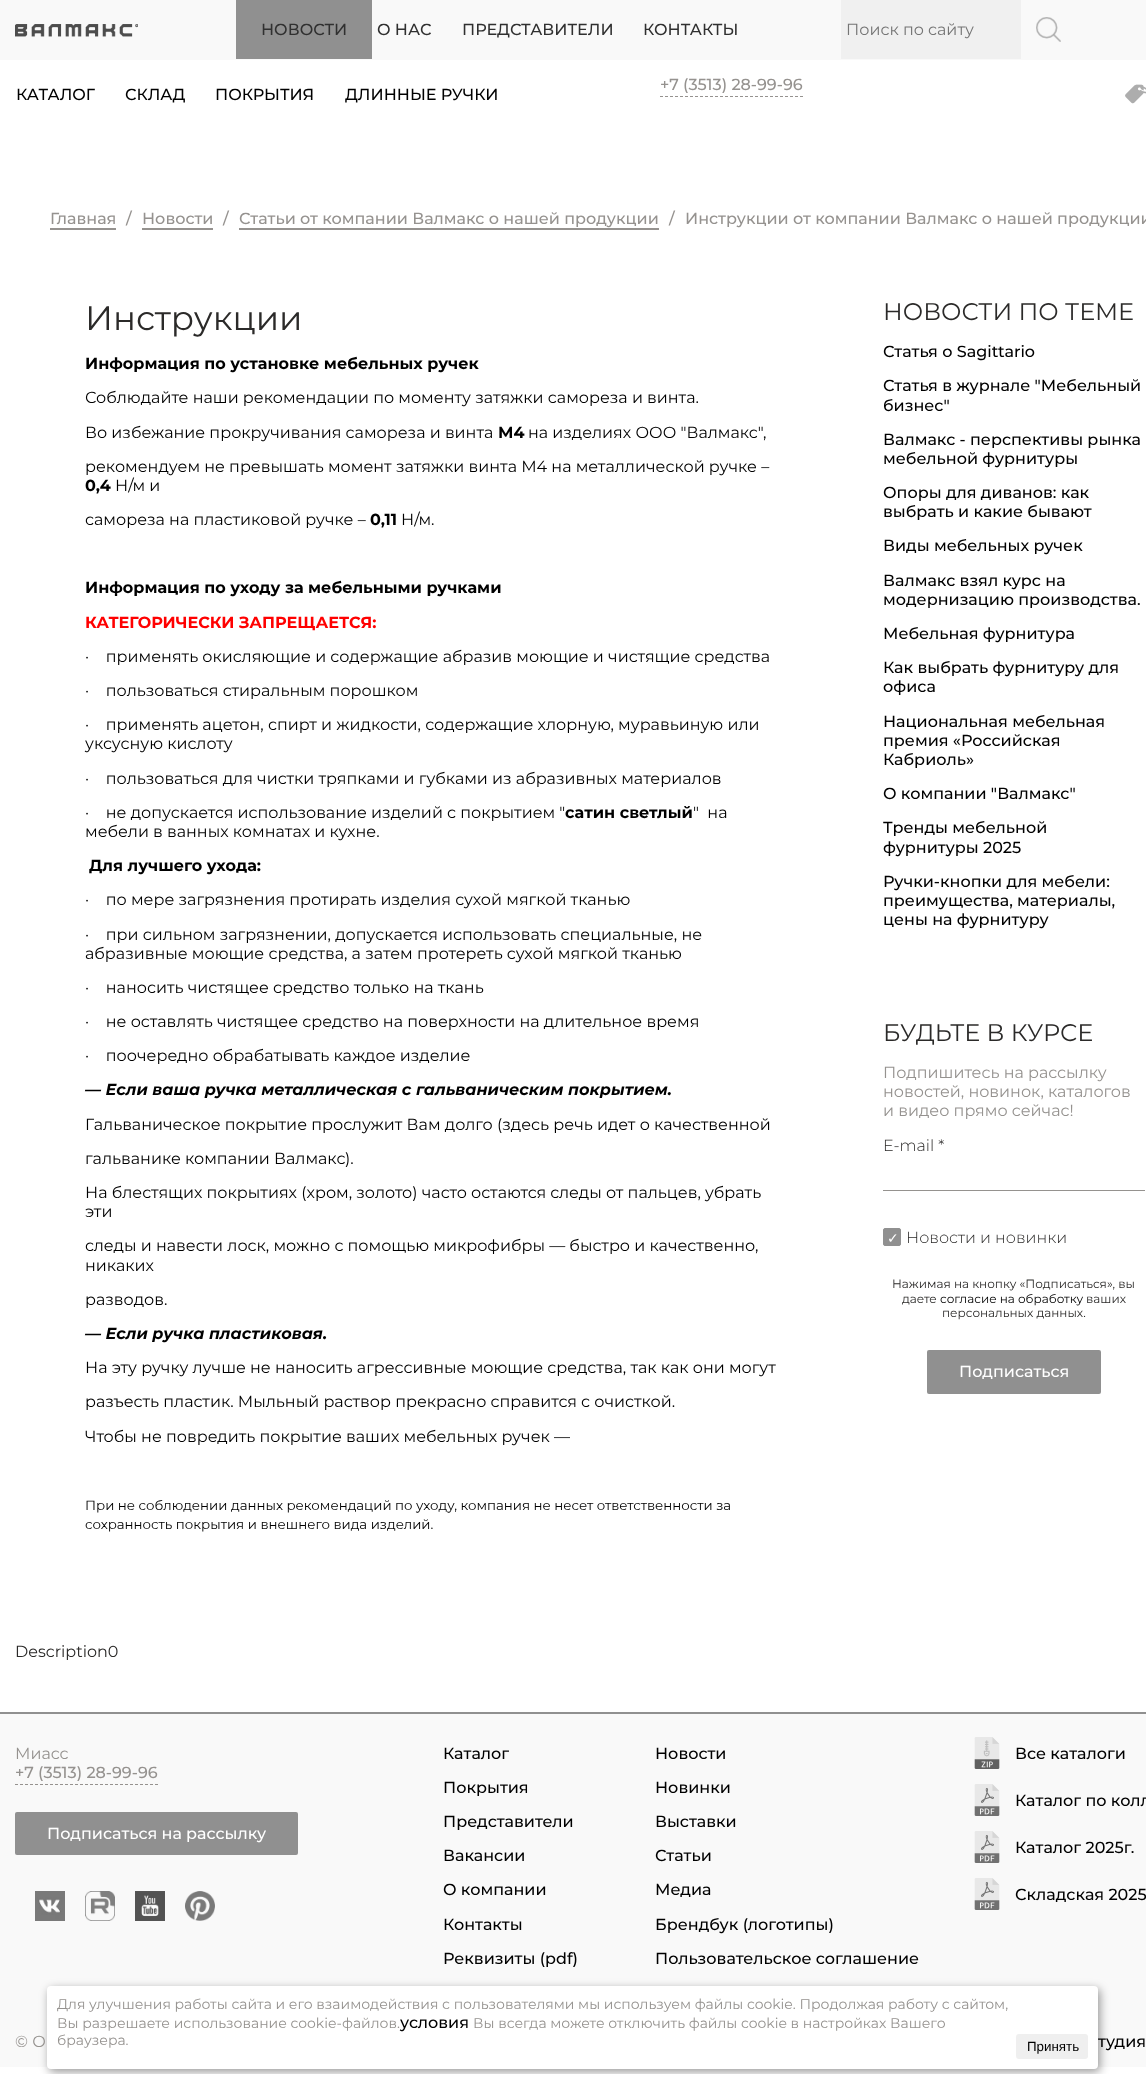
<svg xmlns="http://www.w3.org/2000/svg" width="1146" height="2074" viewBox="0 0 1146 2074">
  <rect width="100%" height="100%" fill="#fff"/>
  <path d="M0 0h1146v60H0z" fill="#f9f9f9"/>
  <image x="15" y="24" width="123" height="13" href="img/1.png"/>
  <path d="M236 0h136v59H236z" fill="#909090"/>
  <path d="M841 0h180v59H841z" fill="#f0f0f0"/>
  <image x="1036" y="17" width="25" height="25" href="img/2.png"/>
  <path d="M660 96.5H803" fill="none" stroke="#95928f" stroke-dasharray="3 2"/>
  <image x="1125" y="84" width="21" height="20" href="img/3.png"/>
  <path d="M50 228h66v2H50z" fill="#95928f"/>
  <path d="M142 228h71v2H142z" fill="#95928f"/>
  <path d="M239 228h420v2H239z" fill="#95928f"/>
  <path d="M883 1190h262v1H883z" fill="#95928f"/>
  <rect x="883.5" y="1228.5" width="17" height="17" rx="1.5" fill="#909090" stroke="#909090"/>
  <rect x="927" y="1350" width="174" height="44" rx="2" fill="#909090"/>
  <path d="M0 1714h1146v353H0z" fill="#f9f9f9"/>
  <path d="M0 1712h1146v2H0z" fill="#909090"/>
  <path d="M15 1784.5H158" fill="none" stroke="#95928f" stroke-dasharray="3 2"/>
  <rect x="15" y="1812" width="283" height="43" rx="2" fill="#909090"/>
  <image x="35" y="1891" width="30" height="30" href="img/4.png"/>
  <image x="85" y="1891" width="30" height="30" href="img/5.png"/>
  <image x="135" y="1891" width="30" height="30" href="img/6.png"/>
  <image x="185" y="1891" width="30" height="30" href="img/7.png"/>
  <image x="974" y="1737" width="26" height="32" href="img/8.png"/>
  <image x="974" y="1784" width="26" height="32" href="img/9.png"/>
  <image x="974" y="1831" width="26" height="32" href="img/9.png"/>
  <image x="974" y="1878" width="26" height="32" href="img/9.png"/>
  <rect x="49" y="1989" width="1051" height="83" rx="4" fill="#00000066" filter="blur(5px)"/>
  <g font-family="Montserrat" font-size="16" font-weight="500" fill="#303030">
    <text x="261" y="35">НОВОСТИ</text>
    <text x="377" y="35">О НАС</text>
    <text x="462" y="35">ПРЕДСТАВИТЕЛИ</text>
    <text x="643" y="35">КОНТАКТЫ</text>
  </g>
  <text x="846" y="35" font-family="Montserrat" font-size="16" fill="#757575">Поиск по сайту</text>
  <g font-family="Montserrat" font-size="16" font-weight="500" fill="#000">
    <text x="16" y="100">КАТАЛОГ</text>
    <text x="125" y="100">СКЛАД</text>
    <text x="215" y="100">ПОКРЫТИЯ</text>
    <text x="345" y="100">ДЛИННЫЕ РУЧКИ</text>
  </g>
  <g font-family="Montserrat" font-size="16" font-weight="500" fill="#95928f">
    <text x="660" y="90">+7 (3513) 28-99-96</text>
    <text x="50" y="224">Главная</text>
    <text x="126" y="224">/</text>
    <text x="142" y="224">Новости</text>
    <text x="223" y="224">/</text>
    <text x="239" y="224">Статьи от компании Валмакс о нашей продукции</text>
    <text x="669" y="224">/</text>
    <text x="685" y="224">Инструкции от компании Валмакс о нашей продукции</text>
  </g>
  <text x="85" y="330" font-family="Montserrat" font-size="34" fill="#2b2a29">Инструкции</text>
  <text x="85" y="369" font-family="Montserrat" font-size="16" font-weight="bold" fill="#000">Информация по установке мебельных ручек</text>
  <g font-family="Montserrat" font-size="16" fill="#000">
    <text x="85" y="403">Соблюдайте наши рекомендации по моменту затяжки самореза и винта.</text>
    <text x="85" y="438">Во избежание прокручивания самореза и винта</text>
  </g>
  <text x="498" y="438" font-family="Montserrat" font-size="16" font-weight="bold" fill="#000">М4</text>
  <g font-family="Montserrat" font-size="16" fill="#000">
    <text x="528" y="438">на изделиях ООО "Валмакс",</text>
    <text x="85" y="472">рекомендуем не превышать момент затяжки винта М4 на металлической ручке –</text>
  </g>
  <text x="85" y="491" font-family="Montserrat" font-size="16" font-weight="bold" fill="#000">0,4</text>
  <g font-family="Montserrat" font-size="16" fill="#000">
    <text x="115" y="491">Н/м и</text>
    <text x="85" y="525">самореза на пластиковой ручке –</text>
  </g>
  <text x="370" y="525" font-family="Montserrat" font-size="16" font-weight="bold" fill="#000">0,11</text>
  <text x="401" y="525" font-family="Montserrat" font-size="16" fill="#000">Н/м.</text>
  <text x="85" y="593" font-family="Montserrat" font-size="16" font-weight="bold" fill="#000">Информация по уходу за мебельными ручками</text>
  <text x="85" y="628" font-family="Montserrat" font-size="16" font-weight="bold" fill="#f00">КАТЕГОРИЧЕСКИ ЗАПРЕЩАЕТСЯ:</text>
  <g font-family="Montserrat" font-size="16" fill="#000">
    <text x="85" y="662" xml:space="preserve">·    применять окисляющие и содержащие абразив моющие и чистящие средства</text>
    <text x="85" y="696" xml:space="preserve">·    пользоваться стиральным порошком</text>
    <text x="85" y="730" xml:space="preserve">·    применять ацетон, спирт и жидкости, содержащие хлорную, муравьиную или</text>
    <text x="85" y="749">уксусную кислоту</text>
    <text x="85" y="784" xml:space="preserve">·    пользоваться для чистки тряпками и губками из абразивных материалов</text>
    <text x="85" y="818" xml:space="preserve">·    не допускается использование изделий с покрытием "</text>
  </g>
  <text x="565" y="818" font-family="Montserrat" font-size="16" font-weight="bold" fill="#000">сатин светлый</text>
  <g font-family="Montserrat" font-size="16" fill="#000">
    <text x="693" y="818" xml:space="preserve">"  на</text>
    <text x="85" y="837">мебели в ванных комнатах и кухне.</text>
  </g>
  <text x="89" y="871" font-family="Montserrat" font-size="16" font-weight="bold" fill="#000">Для лучшего ухода:</text>
  <g font-family="Montserrat" font-size="16" fill="#000">
    <text x="85" y="905" xml:space="preserve">·    по мере загрязнения протирать изделия сухой мягкой тканью</text>
    <text x="85" y="940" xml:space="preserve">·    при сильном загрязнении, допускается использовать специальные, не</text>
    <text x="85" y="959">абразивные моющие средства, а затем протереть сухой мягкой тканью</text>
    <text x="85" y="993" xml:space="preserve">·    наносить чистящее средство только на ткань</text>
    <text x="85" y="1027" xml:space="preserve">·    не оставлять чистящее средство на поверхности на длительное время</text>
    <text x="85" y="1061" xml:space="preserve">·    поочередно обрабатывать каждое изделие</text>
  </g>
  <text x="85" y="1095" font-family="Montserrat" font-size="16" font-weight="bold" font-style="italic" fill="#000">— Если ваша ручка металлическая с гальваническим покрытием.</text>
  <g font-family="Montserrat" font-size="16" fill="#000">
    <text x="85" y="1130">Гальваническое покрытие прослужит Вам долго (здесь речь идет о качественной</text>
    <text x="85" y="1164">гальванике компании Валмакс).</text>
    <text x="85" y="1198">На блестящих покрытиях (хром, золото) часто остаются следы от пальцев, убрать</text>
    <text x="85" y="1217">эти</text>
    <text x="85" y="1251">следы и навести лоск, можно с помощью микрофибры — быстро и качественно,</text>
    <text x="85" y="1271">никаких</text>
    <text x="85" y="1305">разводов.</text>
  </g>
  <text x="85" y="1339" font-family="Montserrat" font-size="16" font-weight="bold" font-style="italic" fill="#000">— Если ручка пластиковая.</text>
  <g font-family="Montserrat" font-size="16" fill="#000">
    <text x="85" y="1373">На эту ручку лучше не наносить агрессивные моющие средства, так как они могут</text>
    <text x="85" y="1407">разъесть пластик. Мыльный раствор прекрасно справится с очисткой.</text>
    <text x="85" y="1442">Чтобы не повредить покрытие ваших мебельных ручек —</text>
  </g>
  <g font-family="Montserrat" font-size="13.35" fill="#000">
    <text x="85" y="1510">При не соблюдении данных рекомендаций по уходу, компания не несет ответственности за</text>
    <text x="85" y="1529">сохранность покрытия и внешнего вида изделий.</text>
  </g>
  <text x="883" y="320" font-family="Montserrat" font-size="24" fill="#2b2a29">НОВОСТИ ПО ТЕМЕ</text>
  <g font-family="Montserrat" font-size="16" font-weight="500" fill="#000">
    <text x="883" y="357">Статья о Sagittario</text>
    <text x="883" y="391">Статья в журнале "Мебельный</text>
    <text x="883" y="411">бизнес"</text>
    <text x="883" y="445">Валмакс - перспективы рынка</text>
    <text x="883" y="464">мебельной фурнитуры</text>
    <text x="883" y="498">Опоры для диванов: как</text>
    <text x="883" y="517">выбрать и какие бывают</text>
    <text x="883" y="551">Виды мебельных ручек</text>
    <text x="883" y="586">Валмакс взял курс на</text>
    <text x="883" y="605">модернизацию производства.</text>
    <text x="883" y="639">Мебельная фурнитура</text>
    <text x="883" y="673">Как выбрать фурнитуру для</text>
    <text x="883" y="692">офиса</text>
    <text x="883" y="727">Национальная мебельная</text>
    <text x="883" y="746">премия «Российская</text>
    <text x="883" y="765">Кабриоль»</text>
    <text x="883" y="799">О компании "Валмакс"</text>
    <text x="883" y="833">Тренды мебельной</text>
    <text x="883" y="853">фурнитуры 2025</text>
    <text x="883" y="887">Ручки-кнопки для мебели:</text>
    <text x="883" y="906">преимущества, материалы,</text>
    <text x="883" y="925">цены на фурнитуру</text>
  </g>
  <text x="883" y="1041" font-family="Montserrat" font-size="24" fill="#2b2a29">БУДЬТЕ В КУРСЕ</text>
  <g font-family="Montserrat" font-size="16" fill="#95928f">
    <text x="883" y="1078">Подпишитесь на рассылку</text>
    <text x="883" y="1097">новостей, новинок, каталогов</text>
    <text x="883" y="1116">и видео прямо сейчас!</text>
  </g>
  <text x="883" y="1151" font-family="Montserrat" font-size="16" font-weight="300" fill="#2b2a29">E-mail *</text>
  <text x="887" y="1243" font-family="DejaVu Sans" font-size="14" fill="#fff">✓</text>
  <text x="906" y="1243" font-family="Montserrat" font-size="16" font-weight="300" fill="#2b2a29">Новости и новинки</text>
  <g font-family="Montserrat" font-size="12" fill="#2b2a29">
    <text x="892" y="1288">Нажимая на кнопку «Подписаться», вы</text>
    <text x="902" y="1303">даете</text>
  </g>
  <text x="940" y="1303" font-family="Montserrat" font-size="12" fill="#000">согласие на обработку</text>
  <g font-family="Montserrat" font-size="12" fill="#2b2a29">
    <text x="1086" y="1303">ваших</text>
    <text x="942" y="1317">персональных данных.</text>
  </g>
  <text x="959" y="1377" font-family="Montserrat" font-size="16" font-weight="500" fill="#fff">Подписаться</text>
  <text x="15" y="1657" font-family="Montserrat" font-size="16" fill="#2b2a29">Description0</text>
  <text x="15" y="1759" font-family="Montserrat" font-size="16" fill="#95928f">Миасс</text>
  <text x="15" y="1778" font-family="Montserrat" font-size="16" font-weight="500" fill="#95928f">+7 (3513) 28-99-96</text>
  <text x="47" y="1839" font-family="Montserrat" font-size="16" font-weight="500" fill="#fff">Подписаться на рассылку</text>
  <g font-family="Montserrat" font-size="16" font-weight="500" fill="#000">
    <text x="443" y="1759">Каталог</text>
    <text x="443" y="1793">Покрытия</text>
    <text x="443" y="1827">Представители</text>
    <text x="443" y="1861">Вакансии</text>
    <text x="443" y="1895">О компании</text>
    <text x="443" y="1930">Контакты</text>
    <text x="443" y="1964">Реквизиты (pdf)</text>
    <text x="655" y="1759">Новости</text>
    <text x="655" y="1793">Новинки</text>
    <text x="655" y="1827">Выставки</text>
    <text x="655" y="1861">Статьи</text>
    <text x="655" y="1895">Медиа</text>
    <text x="655" y="1930">Брендбук (логотипы)</text>
    <text x="655" y="1964">Пользовательское соглашение</text>
    <text x="1015" y="1759">Все каталоги</text>
    <text x="1015" y="1806">Каталог по колл</text>
    <text x="1015" y="1853">Каталог 2025г.</text>
    <text x="1015" y="1900">Складская 2025</text>
  </g>
  <text x="15" y="2047" font-family="Montserrat" font-size="16" fill="#95928f">© О</text>
  <text x="1098" y="2047" font-family="Montserrat" font-size="16" font-weight="500" fill="#000">тудия</text>
  <rect x="47" y="1986" width="1051" height="83" rx="4" fill="#fff"/>
  <rect x="1016" y="2034" width="72" height="25" rx="3" fill="#efefef"/>
  <text x="1027" y="2051" font-family="Liberation Sans" font-size="13.35" fill="#000">Принять</text>
  <g font-family="Montserrat" font-size="14" fill="#95928f">
    <text x="57" y="2045">браузера.</text>
    <text x="473" y="2028">Вы всегда можете отключить файлы cookie в настройках Вашего</text>
  </g>
  <text x="400" y="2028" font-family="Montserrat" font-size="16" font-weight="500" fill="#000">условия</text>
  <g font-family="Montserrat" font-size="14" fill="#95928f">
    <text x="57" y="2028">Вы разрешаете использование cookie-файлов.</text>
    <text x="57" y="2009">Для улучшения работы сайта и его взаимодействия с пользователями мы используем файлы cookie. Продолжая работу с сайтом,</text>
  </g>
</svg>
